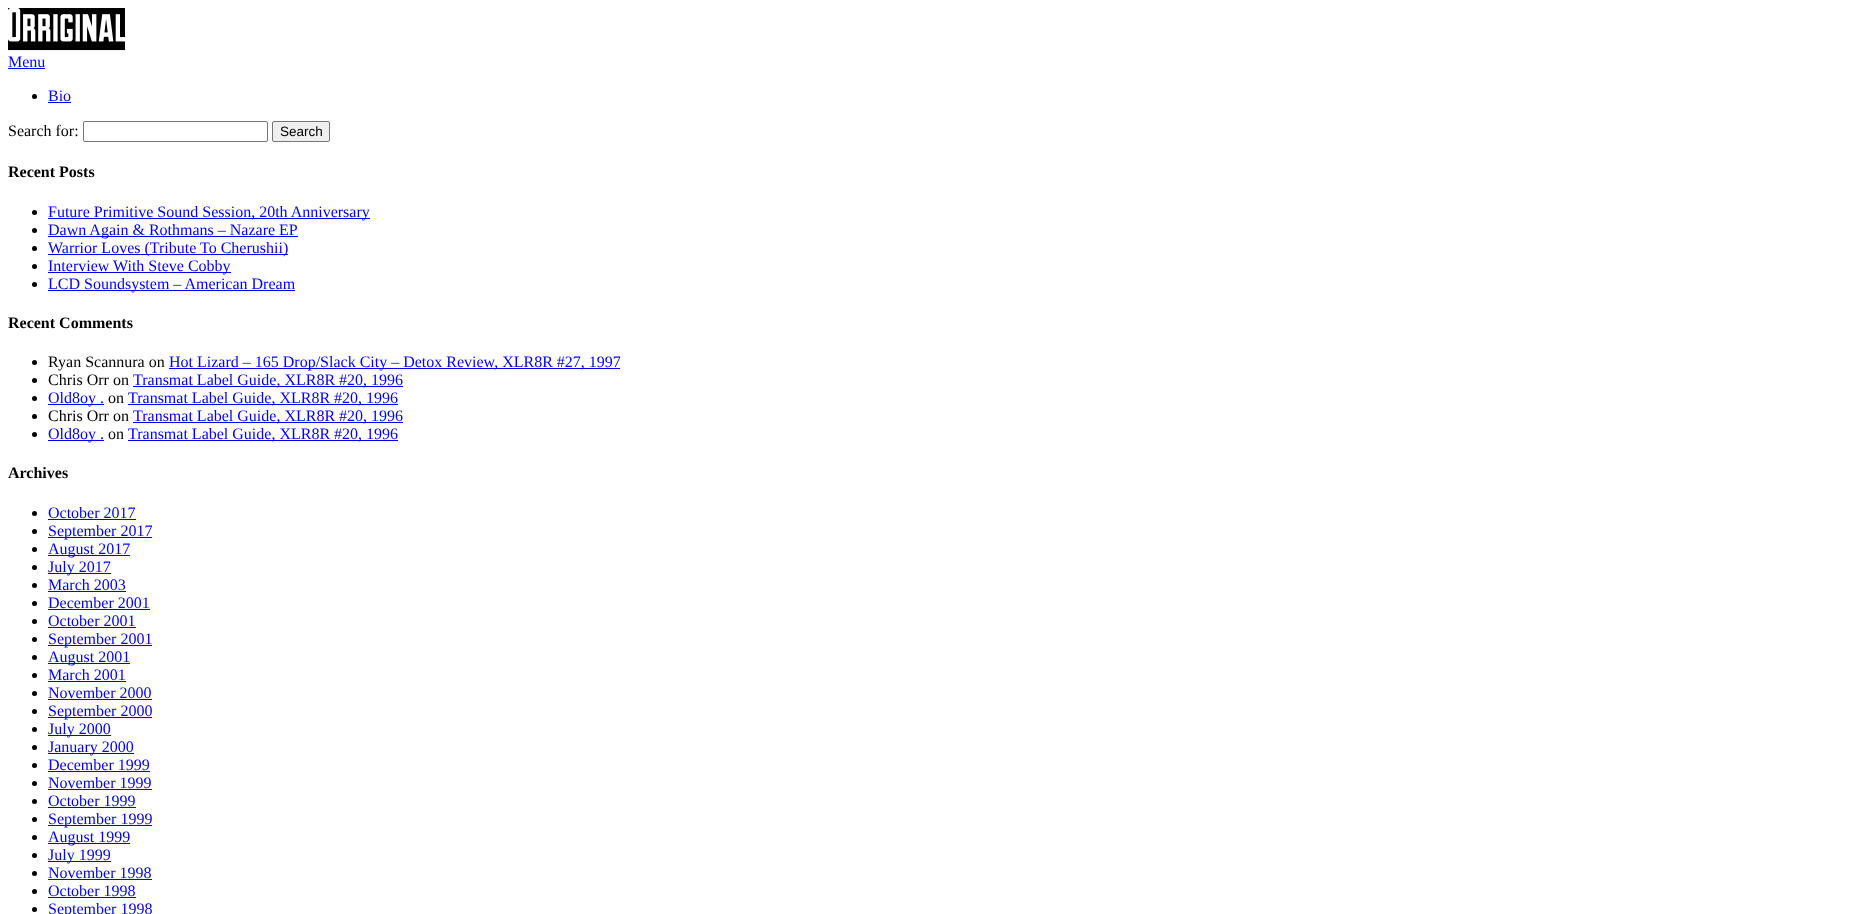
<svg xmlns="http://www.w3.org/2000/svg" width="1866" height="914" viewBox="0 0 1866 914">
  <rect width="100%" height="100%" fill="#fff"/>
  <image x="8" y="8" width="117" height="43" href="img/1.png"/>
  <path d="M8 68h37v1H8z" fill="#00e"/>
  <circle cx="34.5" cy="96.5" r="2.5" fill="#000"/>
  <path d="M48 102h23v1H48z" fill="#00e"/>
  <rect x="83.5" y="121.5" width="184" height="20" rx="1.5" fill="none" stroke="#767676"/>
  <rect x="272.5" y="121.5" width="57" height="20" rx="1.5" fill="#efefef" stroke="#767676"/>
  <circle cx="34.5" cy="212.5" r="2.5" fill="#000"/>
  <path d="M48 218h322v1H48z" fill="#00e"/>
  <circle cx="34.5" cy="230.5" r="2.5" fill="#000"/>
  <path d="M48 236h250v1H48z" fill="#00e"/>
  <circle cx="34.5" cy="248.5" r="2.5" fill="#000"/>
  <path d="M48 254h240v1H48z" fill="#00e"/>
  <circle cx="34.5" cy="266.5" r="2.5" fill="#000"/>
  <path d="M48 272h183v1H48z" fill="#00e"/>
  <circle cx="34.5" cy="284.5" r="2.5" fill="#000"/>
  <path d="M48 290h247v1H48z" fill="#00e"/>
  <circle cx="34.5" cy="362.5" r="2.5" fill="#000"/>
  <path d="M169 368h451v1H169z" fill="#00e"/>
  <circle cx="34.5" cy="380.5" r="2.5" fill="#000"/>
  <path d="M133 386h270v1H133z" fill="#00e"/>
  <circle cx="34.5" cy="398.5" r="2.5" fill="#000"/>
  <path d="M48 404h56v1H48z" fill="#00e"/>
  <path d="M128 404h270v1H128z" fill="#00e"/>
  <circle cx="34.5" cy="416.5" r="2.5" fill="#000"/>
  <path d="M133 422h270v1H133z" fill="#00e"/>
  <circle cx="34.5" cy="434.5" r="2.5" fill="#000"/>
  <path d="M48 440h56v1H48z" fill="#00e"/>
  <path d="M128 440h270v1H128z" fill="#00e"/>
  <circle cx="34.5" cy="513.5" r="2.5" fill="#000"/>
  <path d="M48 519h88v1H48z" fill="#00e"/>
  <circle cx="34.5" cy="531.5" r="2.5" fill="#000"/>
  <path d="M48 537h104v1H48z" fill="#00e"/>
  <circle cx="34.5" cy="549.5" r="2.5" fill="#000"/>
  <path d="M48 555h82v1H48z" fill="#00e"/>
  <circle cx="34.5" cy="567.5" r="2.5" fill="#000"/>
  <path d="M48 573h63v1H48z" fill="#00e"/>
  <circle cx="34.5" cy="585.5" r="2.5" fill="#000"/>
  <path d="M48 591h78v1H48z" fill="#00e"/>
  <circle cx="34.5" cy="603.5" r="2.5" fill="#000"/>
  <path d="M48 609h102v1H48z" fill="#00e"/>
  <circle cx="34.5" cy="621.5" r="2.5" fill="#000"/>
  <path d="M48 627h88v1H48z" fill="#00e"/>
  <circle cx="34.5" cy="639.5" r="2.5" fill="#000"/>
  <path d="M48 645h104v1H48z" fill="#00e"/>
  <circle cx="34.5" cy="657.5" r="2.5" fill="#000"/>
  <path d="M48 663h82v1H48z" fill="#00e"/>
  <circle cx="34.5" cy="675.5" r="2.5" fill="#000"/>
  <path d="M48 681h78v1H48z" fill="#00e"/>
  <circle cx="34.5" cy="693.5" r="2.5" fill="#000"/>
  <path d="M48 699h104v1H48z" fill="#00e"/>
  <circle cx="34.5" cy="711.5" r="2.5" fill="#000"/>
  <path d="M48 717h104v1H48z" fill="#00e"/>
  <circle cx="34.5" cy="729.5" r="2.5" fill="#000"/>
  <path d="M48 735h63v1H48z" fill="#00e"/>
  <circle cx="34.5" cy="747.5" r="2.5" fill="#000"/>
  <path d="M48 753h86v1H48z" fill="#00e"/>
  <circle cx="34.5" cy="765.5" r="2.5" fill="#000"/>
  <path d="M48 771h102v1H48z" fill="#00e"/>
  <circle cx="34.5" cy="783.5" r="2.5" fill="#000"/>
  <path d="M48 789h104v1H48z" fill="#00e"/>
  <circle cx="34.5" cy="801.5" r="2.5" fill="#000"/>
  <path d="M48 807h88v1H48z" fill="#00e"/>
  <circle cx="34.5" cy="819.5" r="2.5" fill="#000"/>
  <path d="M48 825h104v1H48z" fill="#00e"/>
  <circle cx="34.5" cy="837.5" r="2.5" fill="#000"/>
  <path d="M48 843h82v1H48z" fill="#00e"/>
  <circle cx="34.5" cy="855.5" r="2.5" fill="#000"/>
  <path d="M48 861h63v1H48z" fill="#00e"/>
  <circle cx="34.5" cy="873.5" r="2.5" fill="#000"/>
  <path d="M48 879h104v1H48z" fill="#00e"/>
  <circle cx="34.5" cy="891.5" r="2.5" fill="#000"/>
  <path d="M48 897h88v1H48z" fill="#00e"/>
  <circle cx="34.5" cy="909.5" r="2.5" fill="#000"/>
  <g font-family="Liberation Serif" font-size="16" fill="#00e">
    <text x="8" y="67">Menu</text>
    <text x="48" y="101">Bio</text>
  </g>
  <text x="8" y="136" font-family="Liberation Serif" font-size="16" fill="#000">Search for:</text>
  <text x="280" y="136" font-family="Liberation Sans" font-size="13.5" fill="#000">Search</text>
  <text x="8" y="177" font-family="Liberation Serif" font-size="16" font-weight="bold" fill="#000">Recent Posts</text>
  <g font-family="Liberation Serif" font-size="16" fill="#00e">
    <text x="48" y="217">Future Primitive Sound Session, 20th Anniversary</text>
    <text x="48" y="235">Dawn Again &amp; Rothmans – Nazare EP</text>
    <text x="48" y="253">Warrior Loves (Tribute To Cherushii)</text>
    <text x="48" y="271">Interview With Steve Cobby</text>
    <text x="48" y="289">LCD Soundsystem – American Dream</text>
  </g>
  <text x="8" y="328" font-family="Liberation Serif" font-size="16" font-weight="bold" fill="#000">Recent Comments</text>
  <text x="48" y="367" font-family="Liberation Serif" font-size="16" fill="#000">Ryan Scannura on</text>
  <text x="169" y="367" font-family="Liberation Serif" font-size="16" fill="#00e">Hot Lizard – 165 Drop/Slack City – Detox Review, XLR8R #27, 1997</text>
  <text x="48" y="385" font-family="Liberation Serif" font-size="16" fill="#000">Chris Orr on</text>
  <g font-family="Liberation Serif" font-size="16" fill="#00e">
    <text x="133" y="385">Transmat Label Guide, XLR8R #20, 1996</text>
    <text x="48" y="403">Old8oy .</text>
  </g>
  <text x="108" y="403" font-family="Liberation Serif" font-size="16" fill="#000">on</text>
  <text x="128" y="403" font-family="Liberation Serif" font-size="16" fill="#00e">Transmat Label Guide, XLR8R #20, 1996</text>
  <text x="48" y="421" font-family="Liberation Serif" font-size="16" fill="#000">Chris Orr on</text>
  <g font-family="Liberation Serif" font-size="16" fill="#00e">
    <text x="133" y="421">Transmat Label Guide, XLR8R #20, 1996</text>
    <text x="48" y="439">Old8oy .</text>
  </g>
  <text x="108" y="439" font-family="Liberation Serif" font-size="16" fill="#000">on</text>
  <text x="128" y="439" font-family="Liberation Serif" font-size="16" fill="#00e">Transmat Label Guide, XLR8R #20, 1996</text>
  <text x="8" y="478" font-family="Liberation Serif" font-size="16" font-weight="bold" fill="#000">Archives</text>
  <g font-family="Liberation Serif" font-size="16" fill="#00e">
    <text x="48" y="518">October 2017</text>
    <text x="48" y="536">September 2017</text>
    <text x="48" y="554">August 2017</text>
    <text x="48" y="572">July 2017</text>
    <text x="48" y="590">March 2003</text>
    <text x="48" y="608">December 2001</text>
    <text x="48" y="626">October 2001</text>
    <text x="48" y="644">September 2001</text>
    <text x="48" y="662">August 2001</text>
    <text x="48" y="680">March 2001</text>
    <text x="48" y="698">November 2000</text>
    <text x="48" y="716">September 2000</text>
    <text x="48" y="734">July 2000</text>
    <text x="48" y="752">January 2000</text>
    <text x="48" y="770">December 1999</text>
    <text x="48" y="788">November 1999</text>
    <text x="48" y="806">October 1999</text>
    <text x="48" y="824">September 1999</text>
    <text x="48" y="842">August 1999</text>
    <text x="48" y="860">July 1999</text>
    <text x="48" y="878">November 1998</text>
    <text x="48" y="896">October 1998</text>
    <text x="48" y="914">September 1998</text>
  </g>
</svg>
